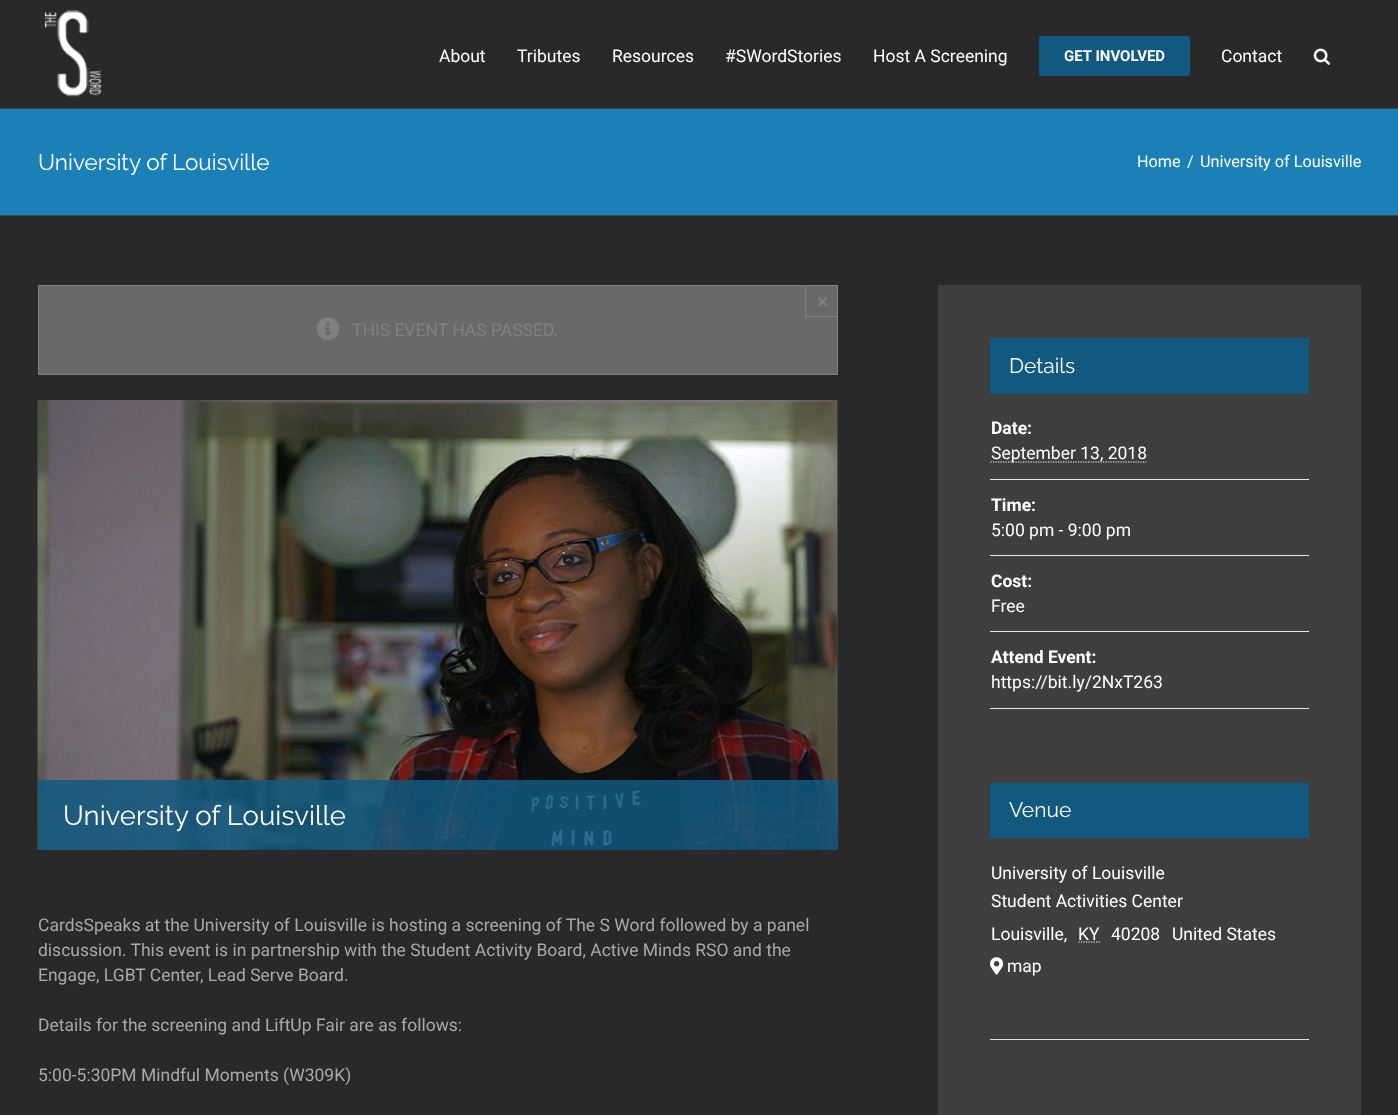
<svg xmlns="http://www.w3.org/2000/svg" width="1398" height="1115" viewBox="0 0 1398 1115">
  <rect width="100%" height="100%" fill="#29292a"/>
  <image x="44" y="10" width="58" height="87" href="img/1.png"/>
  <rect x="1039" y="36" width="151" height="40" rx="2.5" fill="#12597f"/>
  <image x="1313" y="48" width="17" height="17" href="img/2.png"/>
  <path d="M0 109h1398v106H0z" fill="#1a80b6"/>
  <path d="M0 108h1398v1H0z" fill="#464646"/>
  <path d="M0 215h1398v1H0z" fill="#464646"/>
  <path d="M38.5 285.5h799v89H38.5z" fill="#696969" stroke="#808080"/>
  <path d="M805 316h33v1H805z" fill="#808080"/>
  <path d="M805 285h1v33H805z" fill="#808080"/>
  <image x="316" y="317" width="24" height="23" href="img/3.png"/>
  <image x="37" y="400" width="801" height="450" href="img/4.png"/>
  <path d="M38 780h800v70H38z" fill="#12597fd9"/>
  <path d="M938 285h423v830H938z" fill="#3e3e3e"/>
  <path d="M990 338h319v56H990z" fill="#12597f"/>
  <path d="M990 479h319v1H990z" fill="#e8e8e8"/>
  <path d="M990.5 462H1146.5" fill="none" stroke="#fff" stroke-width="1.2" stroke-dasharray="1.25 1.25"/>
  <path d="M990 555h319v1H990z" fill="#e8e8e8"/>
  <path d="M990 631h319v1H990z" fill="#e8e8e8"/>
  <path d="M990 708h319v1H990z" fill="#e8e8e8"/>
  <path d="M990 783h319v55H990z" fill="#12597f"/>
  <path d="M1078.5 942H1100" fill="none" stroke="#fff" stroke-width="1.2" stroke-dasharray="1.25 1.25"/>
  <image x="990" y="957" width="14" height="18" href="img/5.png"/>
  <path d="M990 1039h319v1H990z" fill="#e4e4e4"/>
  <g font-family="Roboto" font-size="17.5" fill="#fff">
    <text x="439" y="62">About</text>
    <text x="517" y="62">Tributes</text>
    <text x="612" y="62">Resources</text>
    <text x="725" y="62">#SWordStories</text>
    <text x="873" y="62">Host A Screening</text>
  </g>
  <text x="1064" y="61" font-family="Roboto" font-size="15" font-weight="bold" fill="#fff">GET INVOLVED</text>
  <text x="1221" y="62" font-family="Roboto" font-size="17.5" fill="#fff">Contact</text>
  <text x="38" y="170" font-family="Raleway" font-size="22.5" font-weight="100" fill="#fff">University of Louisville</text>
  <g font-family="Roboto" font-size="16.25" fill="#fff">
    <text x="1137" y="167">Home</text>
    <text x="1187" y="167">/</text>
    <text x="1200" y="167">University of Louisville</text>
  </g>
  <text x="817" y="308" font-family="Liberation Sans" font-size="19" font-weight="bold" fill="#808080">×</text>
  <text x="352" y="336" font-family="Roboto" font-size="17.5" fill="#808080">THIS EVENT HAS PASSED.</text>
  <text x="63" y="825" font-family="Raleway" font-size="27.5" font-weight="100" fill="#fff">University of Louisville</text>
  <g font-family="Roboto" font-size="17.5" fill="#aaa9a9">
    <text x="38" y="931">CardsSpeaks at the University of Louisville is hosting a screening of The S Word followed by a panel</text>
    <text x="38" y="956">discussion. This event is in partnership with the Student Activity Board, Active Minds RSO and the</text>
    <text x="38" y="981">Engage, LGBT Center, Lead Serve Board.</text>
    <text x="38" y="1031">Details for the screening and LiftUp Fair are as follows:</text>
    <text x="38" y="1081">5:00-5:30PM Mindful Moments (W309K)</text>
  </g>
  <text x="1009" y="373" font-family="Raleway" font-size="21" font-weight="100" fill="#fff">Details</text>
  <text x="991" y="434" font-family="Roboto" font-size="17.5" font-weight="bold" fill="#fff">Date:</text>
  <text x="991" y="459" font-family="Roboto" font-size="17.5" fill="#fff">September 13, 2018</text>
  <text x="991" y="511" font-family="Roboto" font-size="17.5" font-weight="bold" fill="#fff">Time:</text>
  <text x="991" y="536" font-family="Roboto" font-size="17.5" fill="#fff">5:00 pm - 9:00 pm</text>
  <text x="991" y="587" font-family="Roboto" font-size="17.5" font-weight="bold" fill="#fff">Cost:</text>
  <text x="991" y="612" font-family="Roboto" font-size="17.5" fill="#fff">Free</text>
  <text x="991" y="663" font-family="Roboto" font-size="17.5" font-weight="bold" fill="#fff">Attend Event:</text>
  <text x="991" y="688" font-family="Roboto" font-size="17.5" fill="#fff">https://bit.ly/2NxT263</text>
  <text x="1009" y="817" font-family="Raleway" font-size="21" font-weight="100" fill="#fff">Venue</text>
  <g font-family="Roboto" font-size="17.5" fill="#fff">
    <text x="991" y="879">University of Louisville</text>
    <text x="991" y="907">Student Activities Center</text>
    <text x="991" y="940">Louisville,</text>
    <text x="1078" y="940">KY</text>
    <text x="1111" y="940">40208</text>
    <text x="1172" y="940">United States</text>
    <text x="1007" y="972">map</text>
  </g>
</svg>
